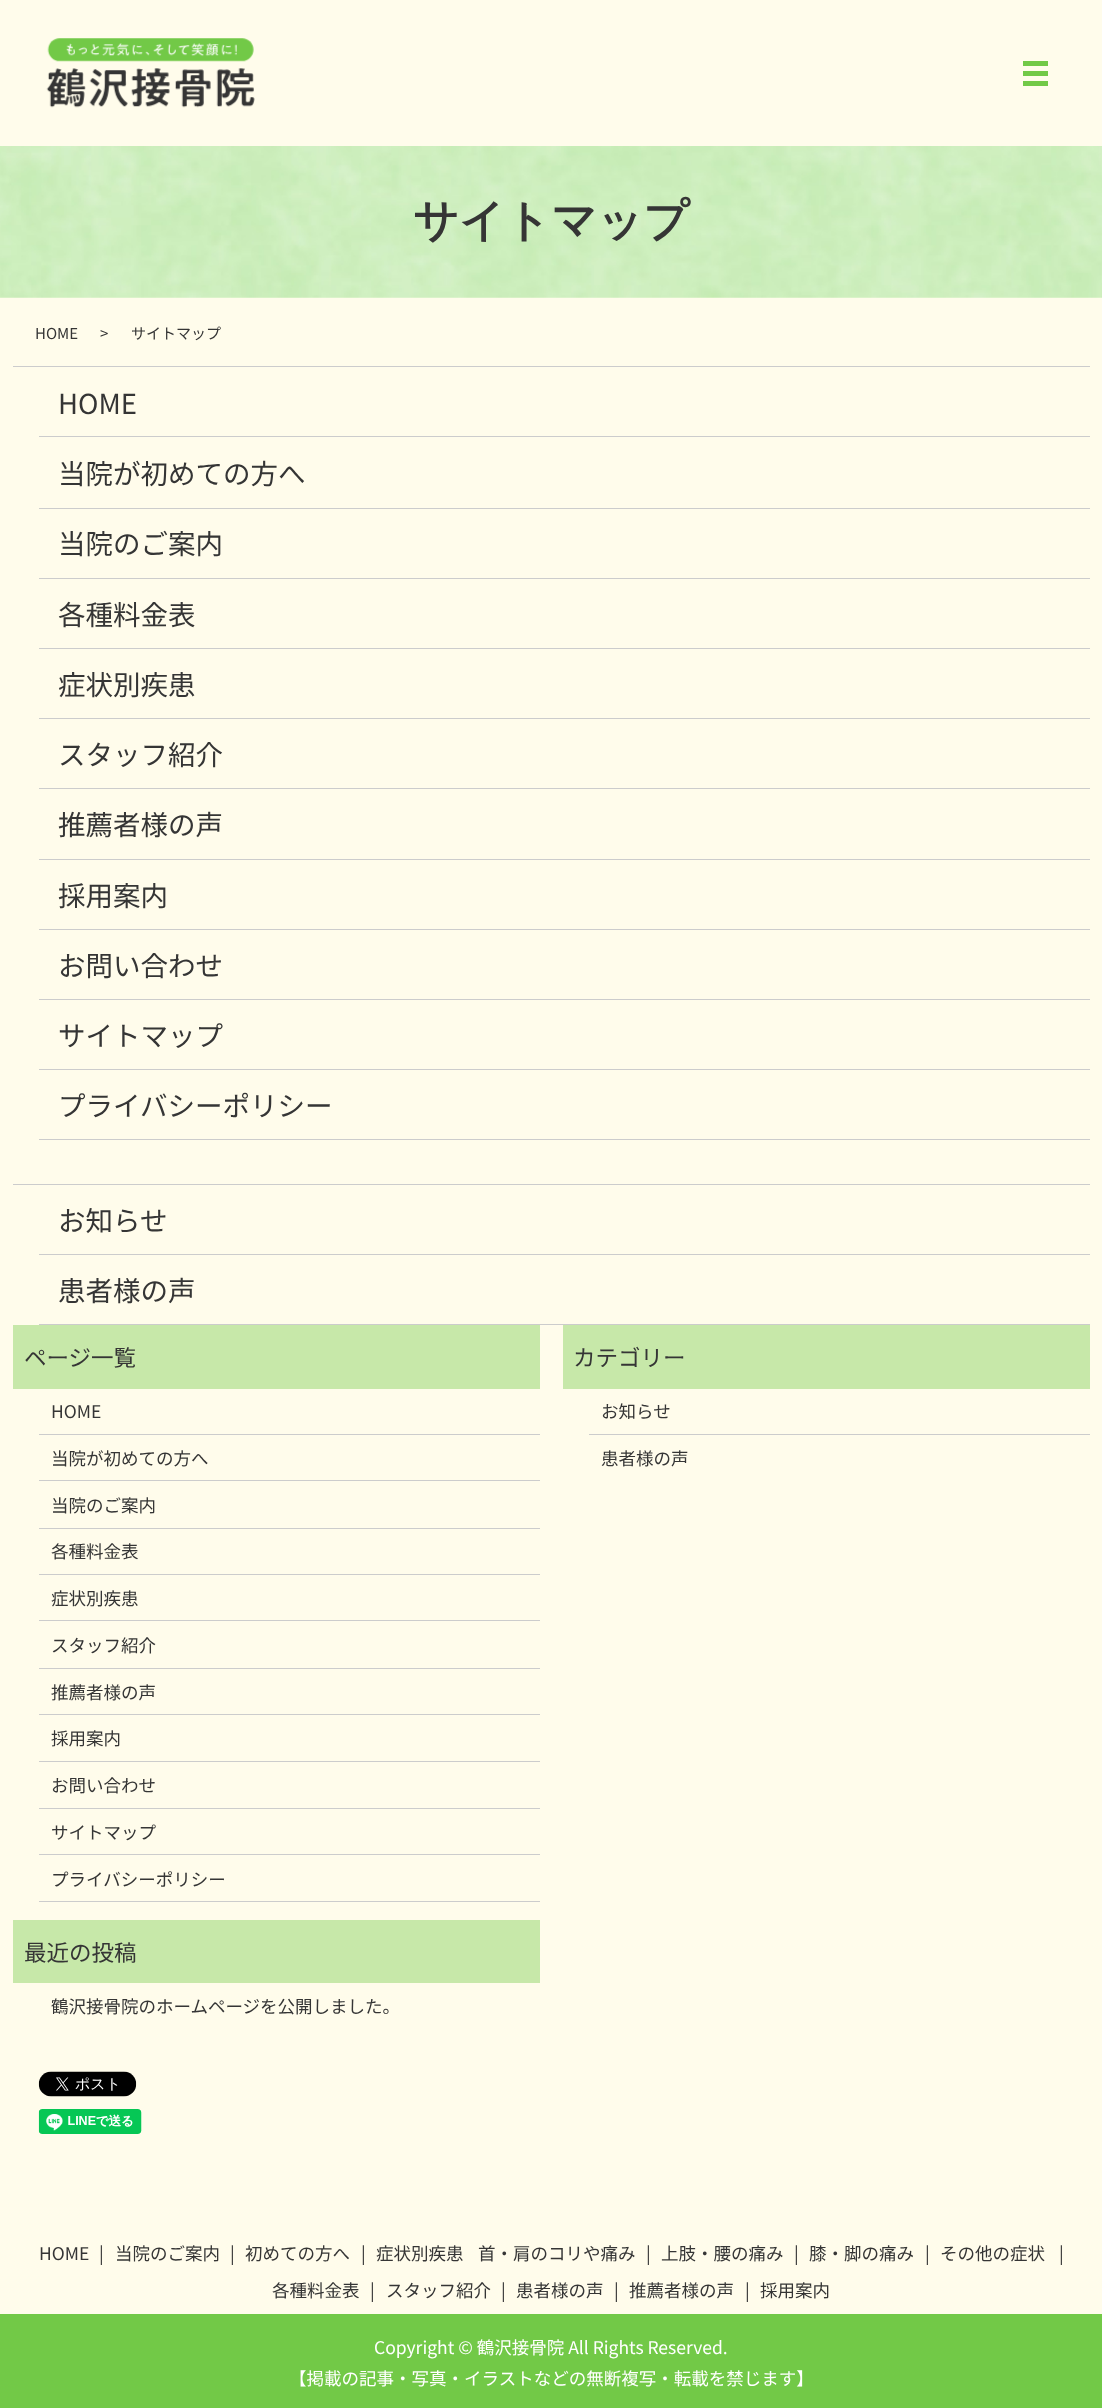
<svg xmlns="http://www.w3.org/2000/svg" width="1102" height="2408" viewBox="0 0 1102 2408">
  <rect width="100%" height="100%" fill="#fffceb"/>
  <image x="46" y="38" width="209" height="70" href="img/1.png"/>
  <path d="M1023 61h25v5H1023z" fill="#72c947"/>
  <path d="M1023 71h25v5H1023z" fill="#72c947"/>
  <path d="M1023 81h25v5H1023z" fill="#72c947"/>
  <image x="0" y="146" width="1102" height="152" href="img/2.png"/>
  <path d="M13 366h1077v1H13z" fill="#ccc"/>
  <path d="M39 436h1051v1H39z" fill="#ccc"/>
  <path d="M39 508h1051v1H39z" fill="#ccc"/>
  <path d="M39 578h1051v1H39z" fill="#ccc"/>
  <path d="M39 648h1051v1H39z" fill="#ccc"/>
  <path d="M39 718h1051v1H39z" fill="#ccc"/>
  <path d="M39 788h1051v1H39z" fill="#ccc"/>
  <path d="M39 859h1051v1H39z" fill="#ccc"/>
  <path d="M39 929h1051v1H39z" fill="#ccc"/>
  <path d="M39 999h1051v1H39z" fill="#ccc"/>
  <path d="M39 1069h1051v1H39z" fill="#ccc"/>
  <path d="M39 1139h1051v1H39z" fill="#ccc"/>
  <path d="M13 1184h1077v1H13z" fill="#ccc"/>
  <path d="M39 1254h1051v1H39z" fill="#ccc"/>
  <path d="M39 1324h1051v1H39z" fill="#ccc"/>
  <path d="M13 1325h527v64H13z" fill="#c7e8a9"/>
  <path d="M39 1434h501v1H39z" fill="#ccc"/>
  <path d="M39 1480h501v1H39z" fill="#ccc"/>
  <path d="M39 1528h501v1H39z" fill="#ccc"/>
  <path d="M39 1574h501v1H39z" fill="#ccc"/>
  <path d="M39 1620h501v1H39z" fill="#ccc"/>
  <path d="M39 1668h501v1H39z" fill="#ccc"/>
  <path d="M39 1714h501v1H39z" fill="#ccc"/>
  <path d="M39 1761h501v1H39z" fill="#ccc"/>
  <path d="M39 1808h501v1H39z" fill="#ccc"/>
  <path d="M39 1854h501v1H39z" fill="#ccc"/>
  <path d="M39 1901h501v1H39z" fill="#ccc"/>
  <path d="M563 1325h527v64H563z" fill="#c7e8a9"/>
  <path d="M589 1434h501v1H589z" fill="#ccc"/>
  <path d="M13 1920h527v63H13z" fill="#c7e8a9"/>
  <image x="38" y="2071" width="99" height="26" href="img/3.png"/>
  <image x="38" y="2109" width="104" height="25" href="img/4.png"/>
  <path d="M0 2314h1102v94H0z" fill="#72c947"/>
  <text x="413" y="236" font-family="WenQuanYi Zen Hei" font-size="45" font-weight="bold" fill="#353535">サイトマップ</text>
  <g font-family="Noto Sans JP" font-size="15" fill="#353535">
    <text x="35" y="339">HOME</text>
    <text x="100" y="339">&gt;</text>
    <text x="131" y="339">サイトマップ</text>
  </g>
  <g font-family="Noto Sans JP" font-size="27.5" fill="#353535">
    <text x="58" y="414">HOME</text>
    <text x="58" y="484">当院が初めての方へ</text>
    <text x="58" y="554">当院のご案内</text>
    <text x="58" y="625">各種料金表</text>
    <text x="58" y="695">症状別疾患</text>
    <text x="58" y="765">スタッフ紹介</text>
    <text x="58" y="835">推薦者様の声</text>
    <text x="58" y="906">採用案内</text>
    <text x="58" y="976">お問い合わせ</text>
    <text x="58" y="1046">サイトマップ</text>
    <text x="58" y="1116">プライバシーポリシー</text>
    <text x="58" y="1231">お知らせ</text>
    <text x="58" y="1301">患者様の声</text>
  </g>
  <text x="24" y="1366" font-family="Noto Sans JP" font-size="22.5" fill="#353535">ページ一覧</text>
  <g font-family="Noto Sans JP" font-size="17.5" fill="#353535">
    <text x="51" y="1418">HOME</text>
    <text x="51" y="1465">当院が初めての方へ</text>
    <text x="51" y="1512">当院のご案内</text>
    <text x="51" y="1558">各種料金表</text>
    <text x="51" y="1605">症状別疾患</text>
    <text x="51" y="1652">スタッフ紹介</text>
    <text x="51" y="1699">推薦者様の声</text>
    <text x="51" y="1745">採用案内</text>
    <text x="51" y="1792">お問い合わせ</text>
    <text x="51" y="1839">サイトマップ</text>
    <text x="51" y="1886">プライバシーポリシー</text>
  </g>
  <text x="573" y="1366" font-family="Noto Sans JP" font-size="22.5" fill="#353535">カテゴリー</text>
  <g font-family="Noto Sans JP" font-size="17.5" fill="#353535">
    <text x="601" y="1418">お知らせ</text>
    <text x="601" y="1465">患者様の声</text>
  </g>
  <text x="24" y="1961" font-family="Noto Sans JP" font-size="22.5" fill="#353535">最近の投稿</text>
  <g font-family="Noto Sans JP" font-size="17.5" fill="#353535">
    <text x="51" y="2013">鶴沢接骨院のホームページを公開しました。</text>
    <text x="99" y="2260">|</text>
    <text x="115" y="2260">当院のご案内</text>
    <text x="230" y="2260">|</text>
    <text x="245" y="2260">初めての方へ</text>
    <text x="1059" y="2260">|</text>
    <text x="272" y="2297">各種料金表</text>
    <text x="39" y="2260">HOME</text>
    <text x="361" y="2260">|</text>
    <text x="376" y="2260">症状別疾患</text>
    <text x="478" y="2260">首・肩のコリや痛み</text>
    <text x="646" y="2260">|</text>
    <text x="661" y="2260">上肢・腰の痛み</text>
    <text x="794" y="2260">|</text>
    <text x="809" y="2260">膝・脚の痛み</text>
    <text x="925" y="2260">|</text>
    <text x="940" y="2260">その他の症状</text>
    <text x="370" y="2297">|</text>
    <text x="386" y="2297">スタッフ紹介</text>
    <text x="501" y="2297">|</text>
    <text x="516" y="2297">患者様の声</text>
    <text x="614" y="2297">|</text>
    <text x="629" y="2297">推薦者様の声</text>
    <text x="745" y="2297">|</text>
    <text x="760" y="2297">採用案内</text>
  </g>
  <g font-family="Noto Sans JP" font-size="17.5" fill="#fff">
    <text x="374" y="2354">Copyright © 鶴沢接骨院 All Rights Reserved.</text>
    <text x="289" y="2385">【掲載の記事・写真・イラストなどの無断複写・転載を禁じます】</text>
  </g>
</svg>
